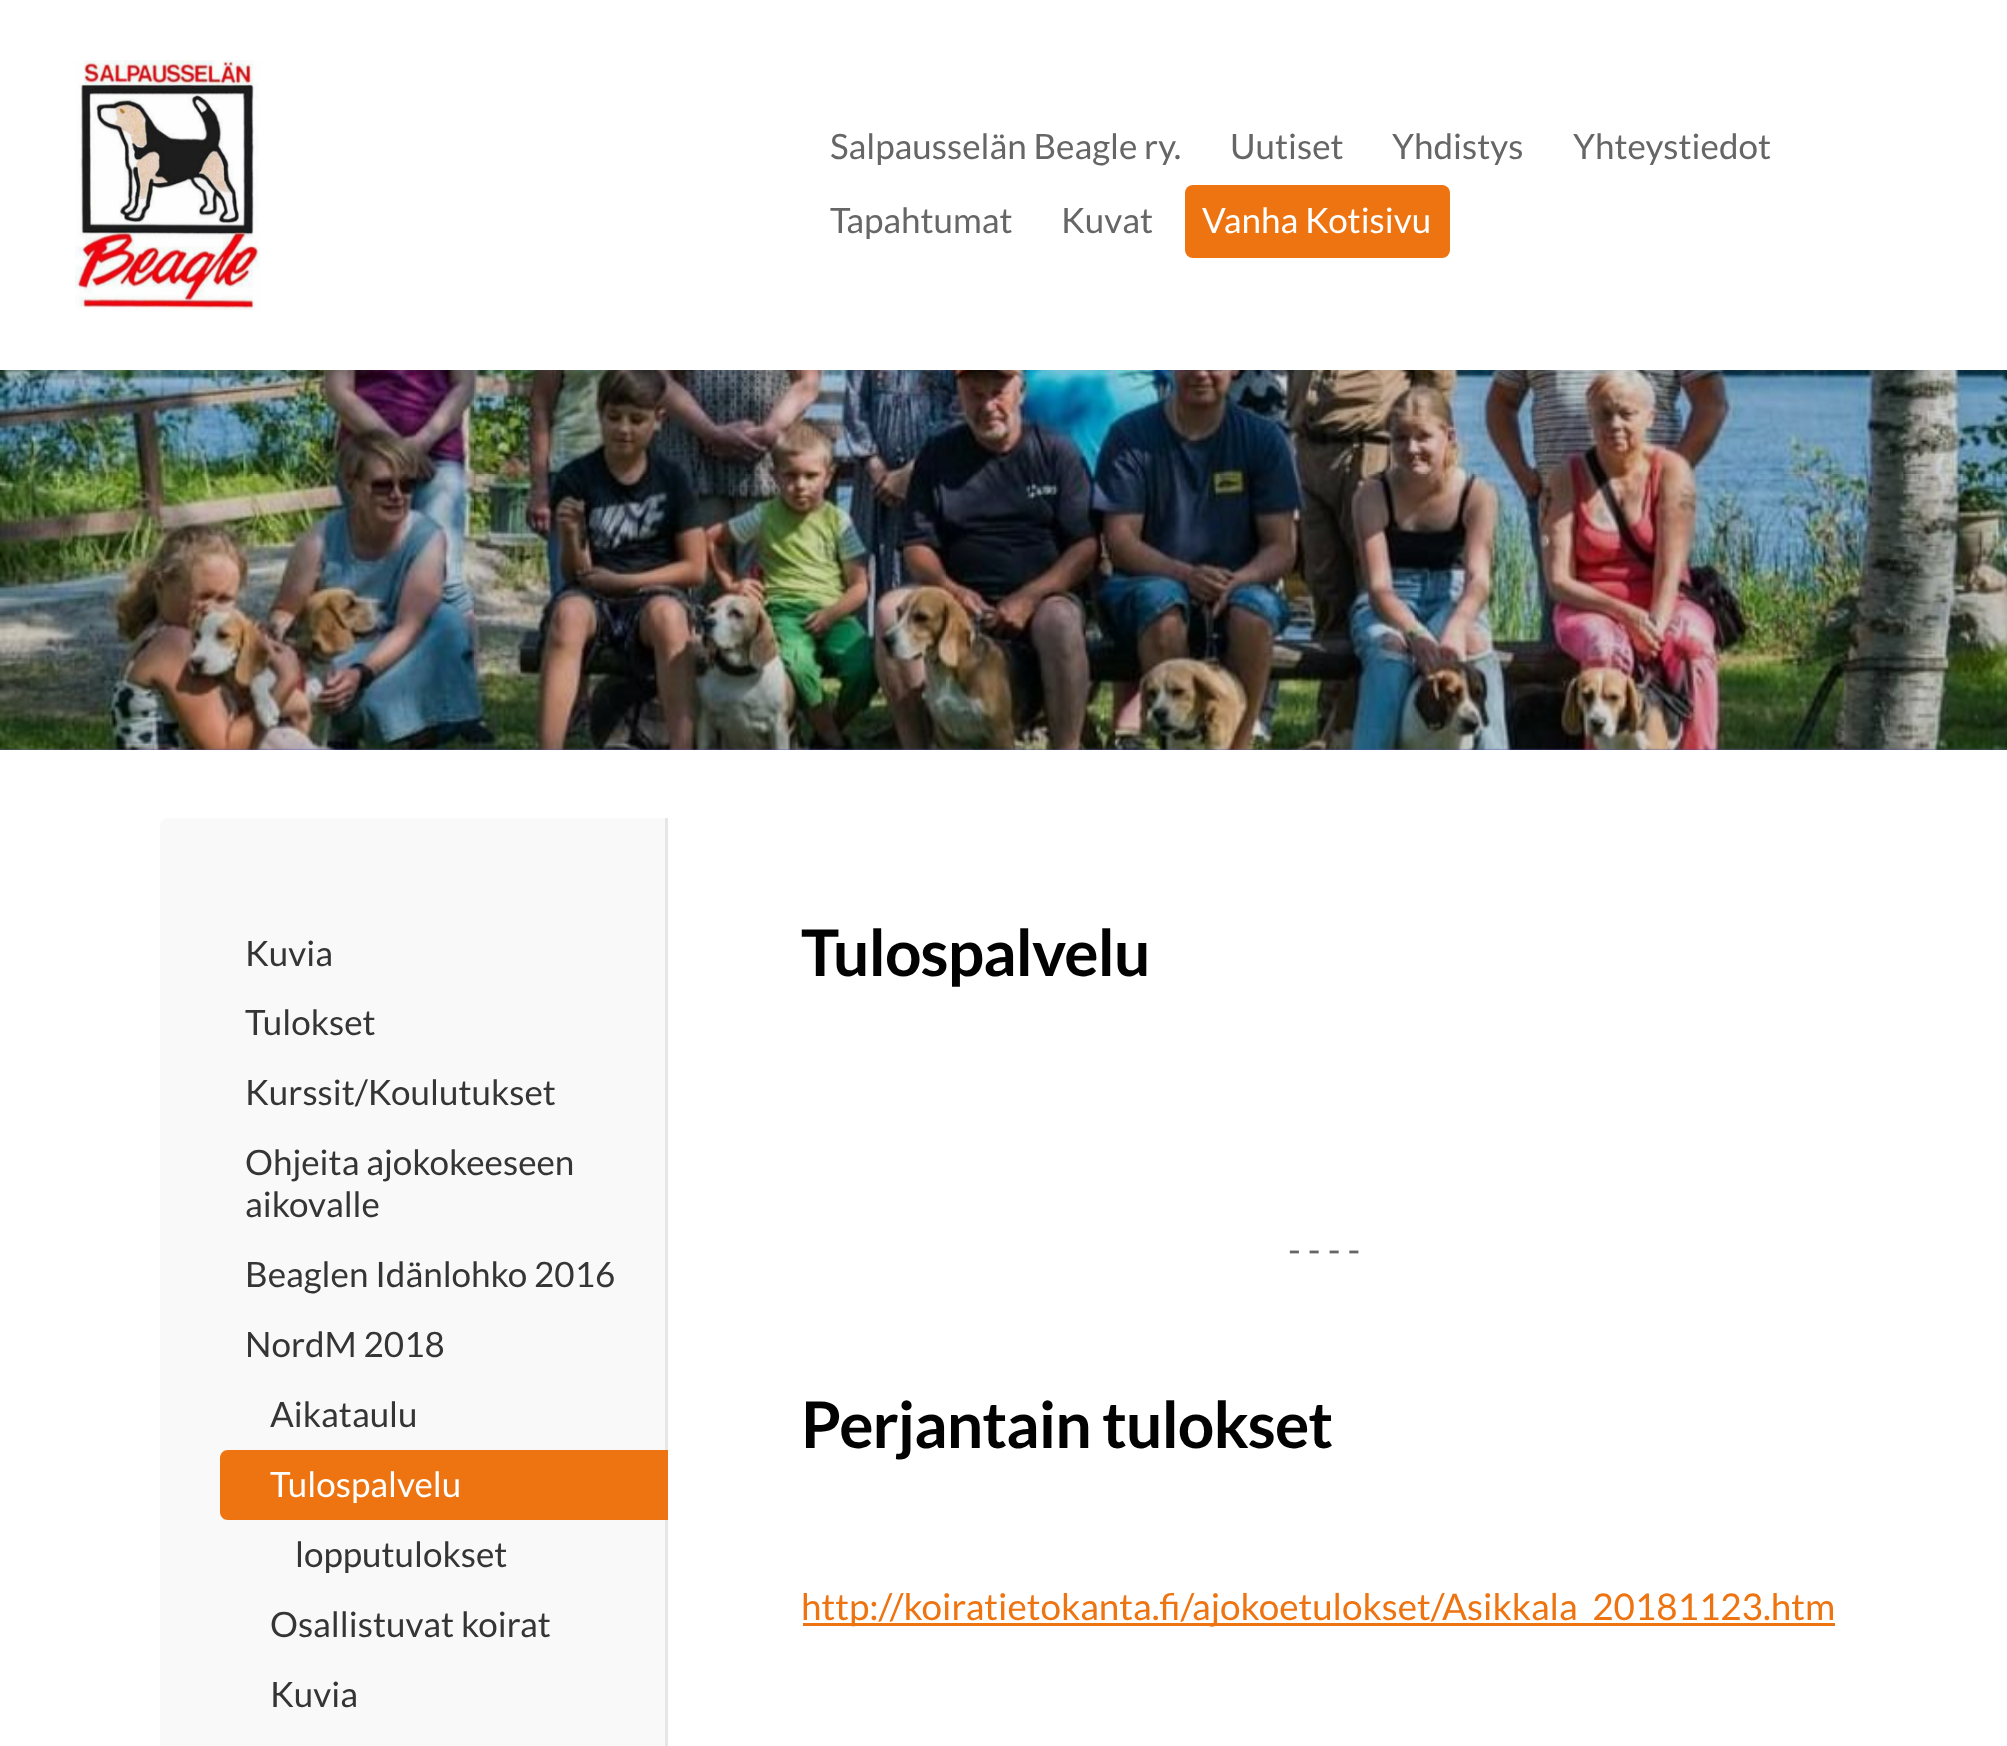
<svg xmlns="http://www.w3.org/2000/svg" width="2007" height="1746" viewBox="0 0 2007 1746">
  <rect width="100%" height="100%" fill="#fff"/>
  <path d="M0 748h2007v2H0z" fill="#5655af"/>
  <image x="0" y="370" width="2007" height="380" href="img/1.png"/>
  <image x="75" y="60" width="185" height="250" href="img/2.png"/>
  <rect x="1185" y="185" width="265" height="73" rx="8" fill="#ed7410"/>
  <path d="M168 818H668V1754H160V826C160 821.5 163.5 818 168 818Z" fill="#f9f9f9"/>
  <path d="M665 818h3v928H665z" fill="#e6e6e6"/>
  <path d="M228 1450H668V1520H228C223.5 1520 220 1516.5 220 1512V1458C220 1453.5 223.5 1450 228 1450Z" fill="#ed7410"/>
  <path d="M803 1623h1032v3H803z" fill="#ed7410"/>
  <g font-family="Lato" font-size="35" fill="#666">
    <text x="830" y="159">Salpausselän Beagle ry.</text>
    <text x="1230" y="159">Uutiset</text>
    <text x="1392" y="159">Yhdistys</text>
    <text x="1573" y="159">Yhteystiedot</text>
    <text x="830" y="233">Tapahtumat</text>
    <text x="1061" y="233">Kuvat</text>
  </g>
  <text x="1202" y="233" font-family="Lato" font-size="35" fill="#fff">Vanha Kotisivu</text>
  <g font-family="Lato" font-size="35" fill="#353535">
    <text x="245" y="966">Kuvia</text>
    <text x="245" y="1035">Tulokset</text>
    <text x="245" y="1105">Kurssit/Koulutukset</text>
    <text x="245" y="1175">Ohjeita ajokokeeseen</text>
    <text x="245" y="1217">aikovalle</text>
    <text x="245" y="1287">Beaglen Idänlohko 2016</text>
    <text x="245" y="1357">NordM 2018</text>
    <text x="270" y="1427">Aikataulu</text>
  </g>
  <text x="270" y="1497" font-family="Lato" font-size="35" fill="#fff">Tulospalvelu</text>
  <g font-family="Lato" font-size="35" fill="#353535">
    <text x="295" y="1567">lopputulokset</text>
    <text x="270" y="1637">Osallistuvat koirat</text>
    <text x="270" y="1707">Kuvia</text>
  </g>
  <text x="801" y="976" font-family="Lato" font-size="64.25" font-weight="bold" letter-spacing="-1" fill="#020202">Tulospalvelu</text>
  <text x="1288" y="1263" font-family="Lato" font-size="36.8" fill="#666">- - - -</text>
  <text x="801" y="1448" font-family="Lato" font-size="64.25" font-weight="bold" letter-spacing="-1" fill="#020202">Perjantain tulokset</text>
  <text x="801" y="1620" font-family="Lato" font-size="36.8" fill="#ed7410">http://koiratietokanta.fi/ajokoetulokset/Asikkala_20181123.htm</text>
</svg>
